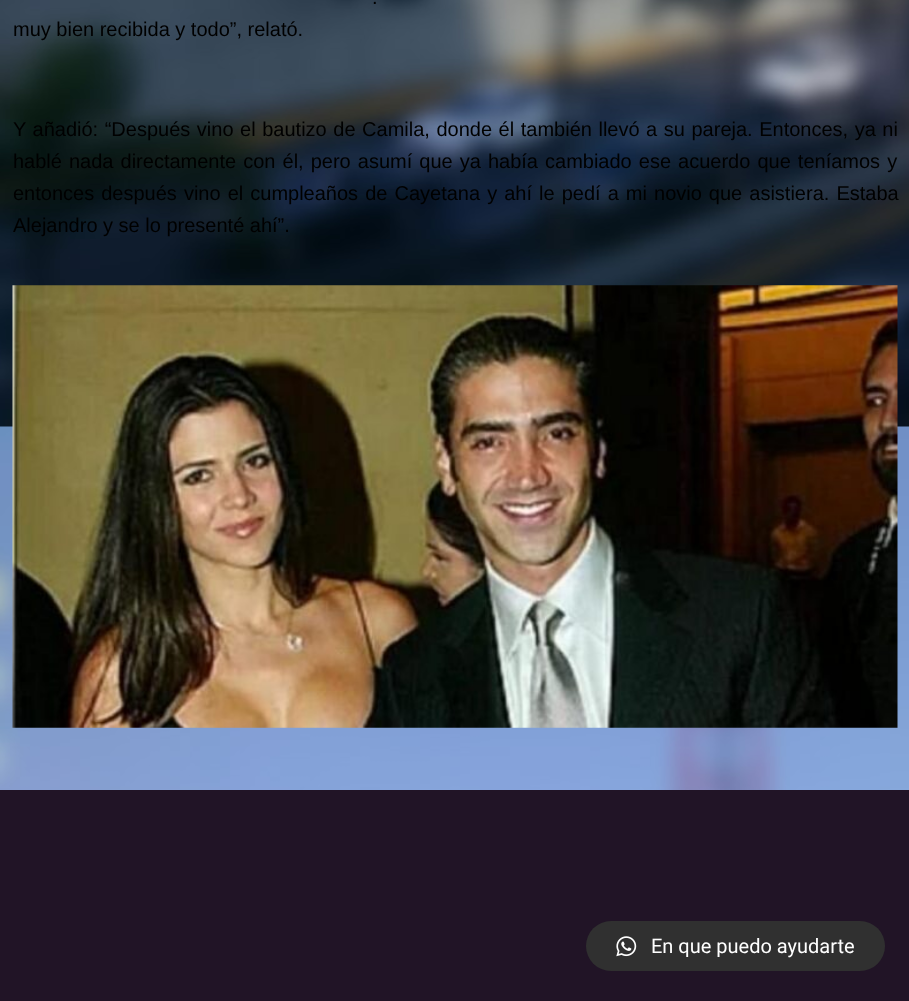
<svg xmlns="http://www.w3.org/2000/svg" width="909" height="1001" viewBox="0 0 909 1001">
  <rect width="100%" height="100%" fill="#fff"/>
  <image x="0" y="0" width="909" height="790" href="img/1.png"/>
  <image x="12" y="285" width="886" height="443" href="img/2.png"/>
  <path d="M0 790h909v211H0z" fill="#211426"/>
  <rect x="586" y="921" width="299" height="50" rx="25" fill="#303030"/>
  <image x="616" y="936" width="21" height="21" href="img/3.png"/>
  <g font-family="Liberation Sans" font-size="20" fill="#000">
    <text x="372" y="4" word-spacing="2">.</text>
    <text x="13" y="36">muy bien recibida y todo”, relató.</text>
    <text x="13" y="136" word-spacing="1">Y añadió: “Después vino el bautizo de Camila, donde él también llevó a su pareja. Entonces, ya ni</text>
    <text x="13" y="168" word-spacing="1.5">hablé nada directamente con él, pero asumí que ya había cambiado ese acuerdo que teníamos y</text>
    <text x="13" y="200" word-spacing="1.5">entonces después vino el cumpleaños de Cayetana y ahí le pedí a mi novio que asistiera. Estaba</text>
    <text x="13" y="232">Alejandro y se lo presenté ahí”.</text>
  </g>
  <text x="651" y="953" font-family="Roboto" font-size="20" fill="#fff">En que puedo ayudarte</text>
</svg>
